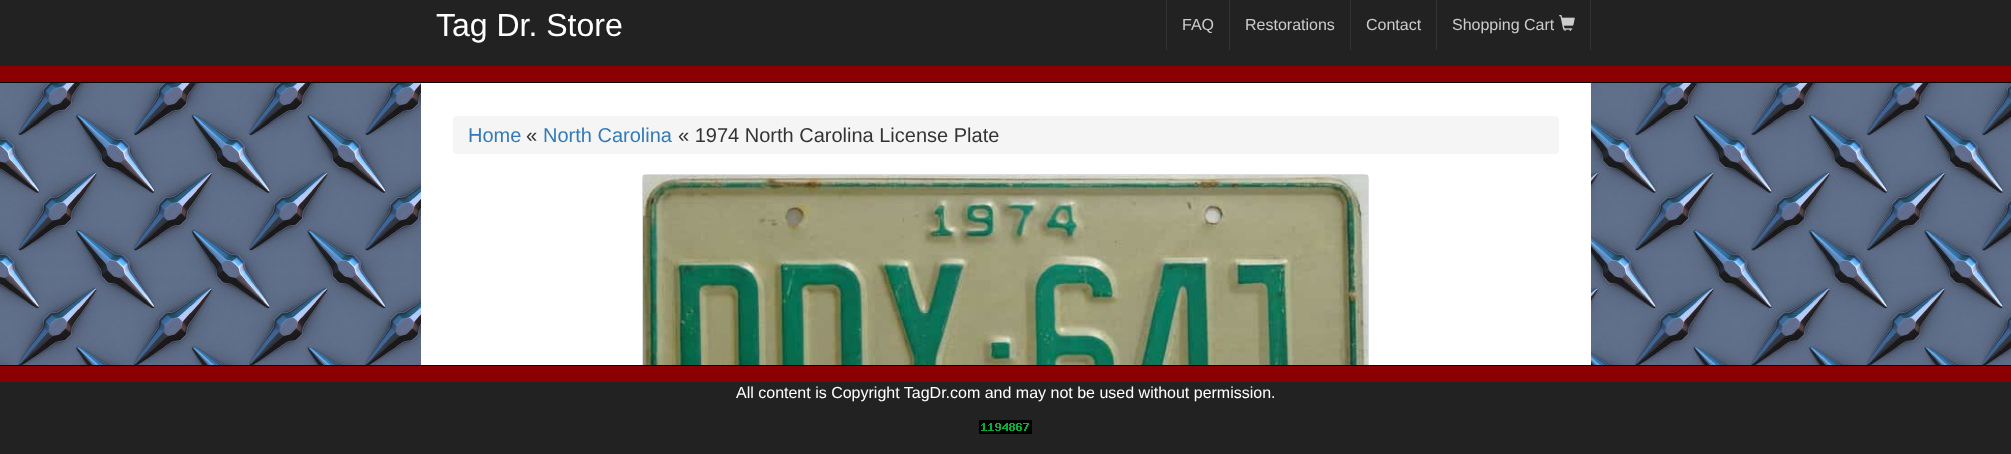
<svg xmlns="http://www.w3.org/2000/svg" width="2011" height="454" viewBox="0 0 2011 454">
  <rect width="100%" height="100%" fill="#fff"/>
  <image x="0" y="83" width="2011" height="282" href="img/1.png"/>
  <path d="M0 0h2011v66H0z" fill="#222"/>
  <path d="M0 82h2011v1H0z" fill="#080808"/>
  <path d="M1166 0h1v50H1166z" fill="#333"/>
  <path d="M1229 0h1v50H1229z" fill="#333"/>
  <path d="M1350 0h1v50H1350z" fill="#333"/>
  <path d="M1590 0h1v50H1590z" fill="#333"/>
  <path d="M1436 0h1v50H1436z" fill="#333"/>
  <image x="1559" y="15" width="16" height="16" href="img/2.png"/>
  <path d="M0 66h2011v16H0z" fill="#8b0000"/>
  <path d="M421 83h1170v282H421z" fill="#fff"/>
  <rect x="453" y="116" width="1106" height="38" rx="4" fill="#f5f5f5"/>
  <rect x="642.5" y="174.5" width="726" height="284" rx="3.5" fill="none" stroke="#ddd"/>
  <image x="643" y="175" width="725" height="190" href="img/3.png"/>
  <path d="M0 382h2011v72H0z" fill="#222"/>
  <path d="M0 365h2011v1H0z" fill="#080808"/>
  <path d="M0 366h2011v16H0z" fill="#8b0000"/>
  <image x="979" y="420" width="53" height="14" href="img/4.png"/>
  <text x="436" y="36" font-family="Liberation Sans" font-size="32" fill="#fff">Tag Dr. Store</text>
  <g font-family="Liberation Sans" font-size="16" fill="#ccc">
    <text x="1182" y="30">FAQ</text>
    <text x="1245" y="30">Restorations</text>
    <text x="1366" y="30">Contact</text>
    <text x="1452" y="30">Shopping Cart</text>
  </g>
  <text x="468" y="142" font-family="Liberation Sans" font-size="20" fill="#337ab7">Home</text>
  <text x="526" y="142" font-family="Liberation Sans" font-size="20" fill="#333">«</text>
  <text x="543" y="142" font-family="Liberation Sans" font-size="20" fill="#337ab7">North Carolina</text>
  <text x="678" y="142" font-family="Liberation Sans" font-size="20" fill="#333">« 1974 North Carolina License Plate</text>
  <text x="736" y="398" font-family="Liberation Sans" font-size="16" fill="#fff">All content is Copyright TagDr.com and may not be used without permission.</text>
</svg>
